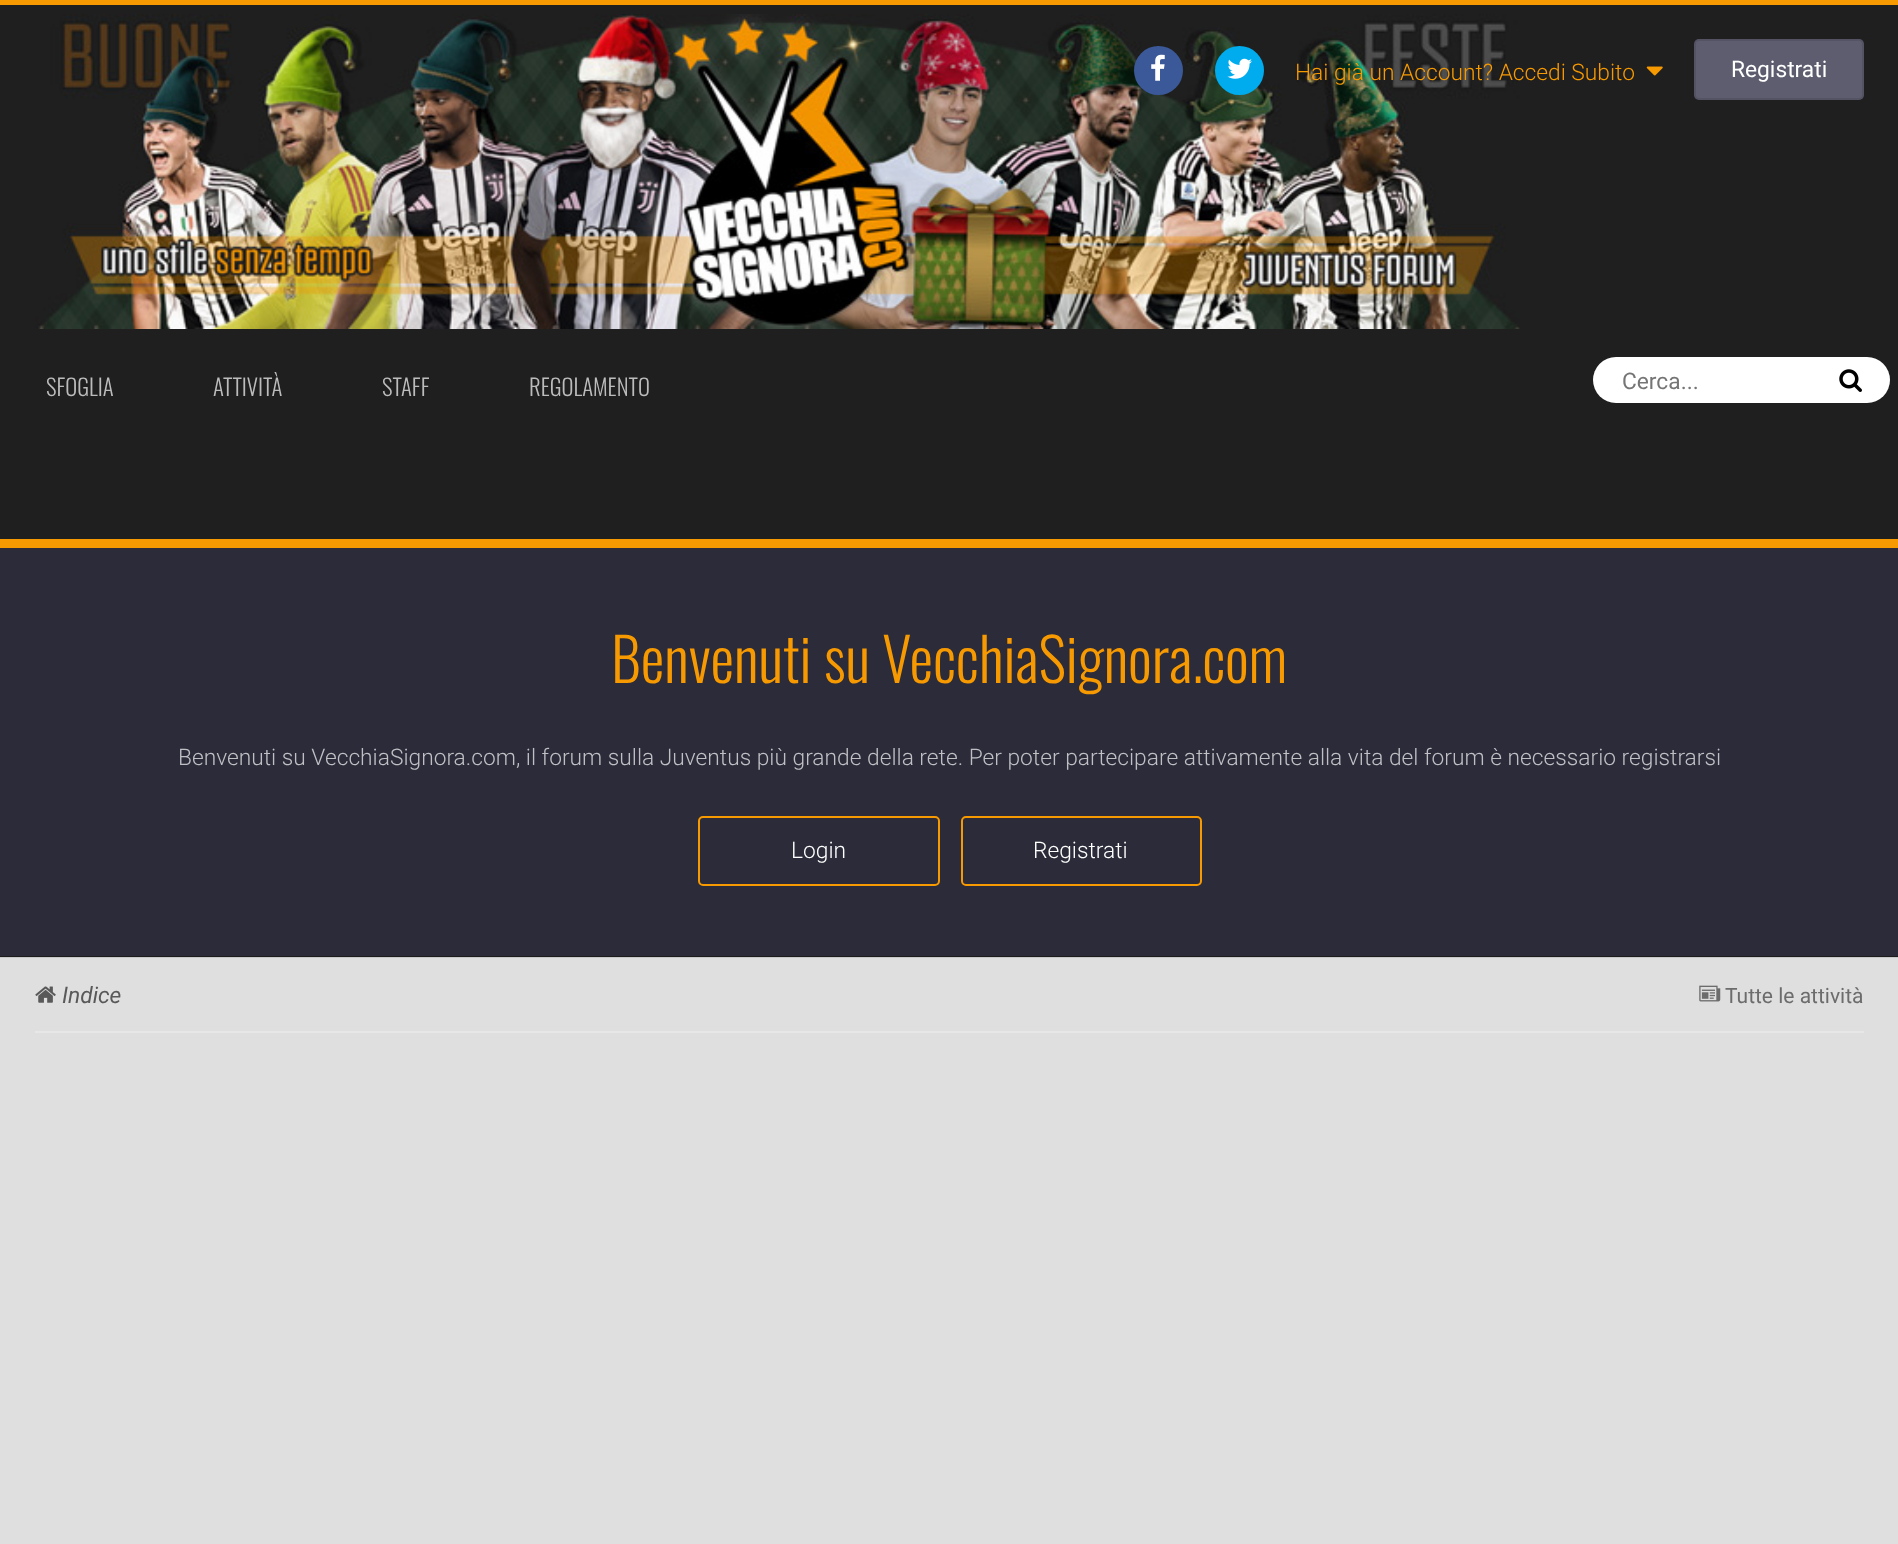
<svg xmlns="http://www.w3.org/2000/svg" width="1898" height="1544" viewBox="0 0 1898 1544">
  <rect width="100%" height="100%" fill="#dfdfdf"/>
  <path d="M0 957h1898v1H0z" fill="#c9c9c9"/>
  <path d="M0 5h1898v534H0z" fill="#1f1f1f"/>
  <path d="M0 956h1898v1H0z" fill="#1c1c1c"/>
  <path d="M0 0h1898v5H0z" fill="#f79900"/>
  <image x="35" y="14" width="1485" height="315" href="img/1.png"/>
  <circle cx="1158.5" cy="70.5" r="24.5" fill="#3b5998"/>
  <image x="1151" y="54" width="14" height="27" href="img/2.png"/>
  <circle cx="1239.5" cy="70.5" r="24.5" fill="#00aced"/>
  <image x="1227" y="58" width="25" height="21" href="img/3.png"/>
  <image x="1646" y="66" width="17" height="10" href="img/4.png"/>
  <rect x="1694" y="39" width="170" height="61" rx="5" fill="#5d5d6f"/>
  <rect x="1695" y="40" width="168" height="59" rx="4" fill="none" stroke="#0000001a" stroke-width="2"/>
  <rect x="1593" y="357" width="297" height="46" rx="23" fill="#fff"/>
  <image x="1839" y="369" width="23" height="23" href="img/5.png"/>
  <path d="M0 548h1898v408H0z" fill="#2b2b3a"/>
  <path d="M0 539h1898v9H0z" fill="#f79900"/>
  <rect x="699" y="817" width="240" height="68" rx="4" fill="none" stroke="#f79900" stroke-width="2"/>
  <rect x="962" y="817" width="239" height="68" rx="4" fill="none" stroke="#f79900" stroke-width="2"/>
  <path d="M35 1031h1829v2H35z" fill="#e7e7e7"/>
  <image x="35" y="986" width="21" height="17" href="img/6.png"/>
  <image x="1699" y="985" width="22" height="17" href="img/7.png"/>
  <text x="1295" y="80" font-family="Roboto" font-size="22.75" font-weight="300" fill="#f79900">Hai già un Account? Accedi Subito</text>
  <text x="1731" y="77" font-family="Roboto" font-size="22.75" fill="#fff">Registrati</text>
  <g font-family="Oswald" font-size="22.75" font-weight="300" fill="#bcbcbc">
    <text x="46" y="396">SFOGLIA</text>
    <text x="213" y="396">ATTIVITÀ</text>
    <text x="382" y="396">STAFF</text>
    <text x="529" y="396">REGOLAMENTO</text>
  </g>
  <text x="1622" y="389" font-family="Roboto" font-size="22.75" fill="#757575">Cerca...</text>
  <text x="611" y="683" font-family="Oswald" font-size="59.5" font-weight="300" fill="#f79900">Benvenuti su VecchiaSignora.com</text>
  <text x="178" y="765" font-family="Roboto" font-size="22.75" font-weight="300" fill="#bfbfc4">Benvenuti su VecchiaSignora.com, il forum sulla Juventus più grande della rete. Per poter partecipare attivamente alla vita del forum è necessario registrarsi</text>
  <g font-family="Roboto" font-size="22.75" font-weight="300" fill="#fff">
    <text x="791" y="858">Login</text>
    <text x="1033" y="858">Registrati</text>
  </g>
  <text x="62" y="1003" font-family="Roboto" font-size="22.75" font-style="italic" fill="#595959">Indice</text>
  <text x="1725" y="1003" font-family="Roboto" font-size="21" fill="#6c6c6c">Tutte le attività</text>
</svg>
